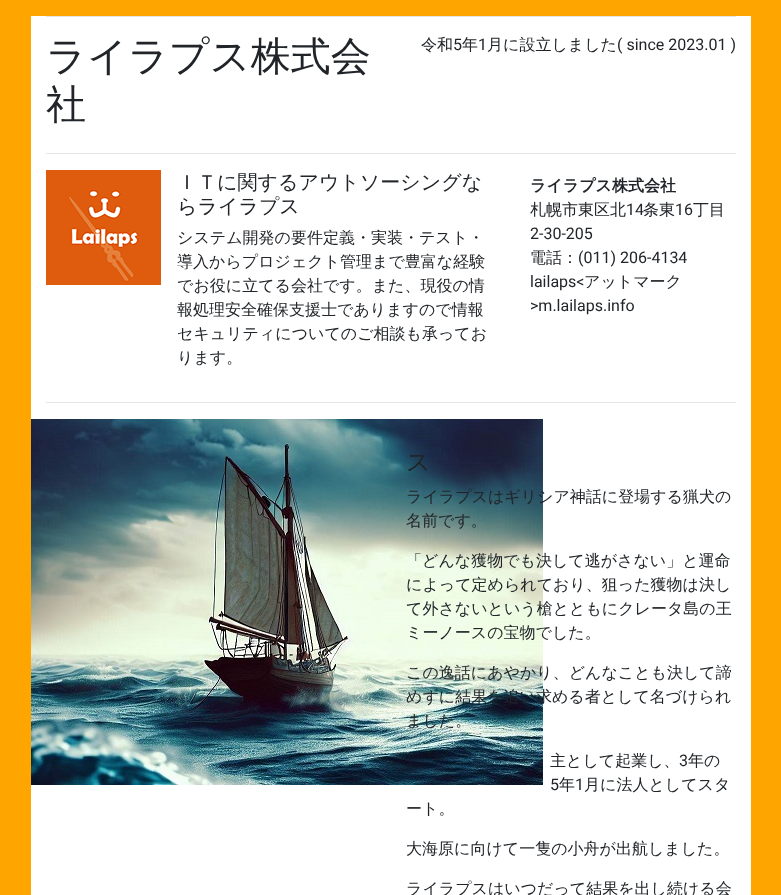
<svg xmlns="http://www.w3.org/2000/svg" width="781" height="895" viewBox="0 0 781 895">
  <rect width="100%" height="100%" fill="#ffa500"/>
  <path d="M31 16h720v879H31z" fill="#fff"/>
  <path d="M46 16h690v1H46z" fill="#e6e6e6"/>
  <path d="M46 153h690v1H46z" fill="#e6e6e6"/>
  <image x="46" y="170" width="115" height="115" href="img/1.png"/>
  <path d="M46 402h690v1H46z" fill="#e6e6e6"/>
  <image x="31" y="419" width="512" height="366" href="img/2.png"/>
  <g font-family="WenQuanYi Zen Hei" font-size="40" font-weight="500" fill="#212529">
    <text x="46" y="70">ライラプス株式会</text>
    <text x="46" y="118">社</text>
  </g>
  <text x="421" y="50" font-family="WenQuanYi Zen Hei" font-size="16" font-weight="500" fill="#212529">令和</text>
  <text x="453" y="50" font-family="Roboto" font-size="16" fill="#212529">5</text>
  <text x="462" y="50" font-family="WenQuanYi Zen Hei" font-size="16" font-weight="500" fill="#212529">年</text>
  <text x="478" y="50" font-family="Roboto" font-size="16" fill="#212529">1</text>
  <text x="487" y="50" font-family="WenQuanYi Zen Hei" font-size="16" font-weight="500" fill="#212529">月に設立しました</text>
  <text x="617" y="50" font-family="Roboto" font-size="16" fill="#212529">( since 2023.01 )</text>
  <g font-family="WenQuanYi Zen Hei" font-size="20" font-weight="500" fill="#212529">
    <text x="177" y="189">ＩＴに関するアウトソーシングな</text>
    <text x="177" y="213">らライラプス</text>
  </g>
  <g font-family="WenQuanYi Zen Hei" font-size="16" font-weight="500" fill="#212529">
    <text x="177" y="243">システム開発の要件定義・実装・テスト・</text>
    <text x="177" y="267">導入からプロジェクト管理まで豊富な経験</text>
    <text x="177" y="291">でお役に立てる会社です。また、現役の情</text>
    <text x="177" y="315">報処理安全確保支援士でありますので情報</text>
    <text x="177" y="339">セキュリティについてのご相談も承ってお</text>
    <text x="177" y="363">ります。</text>
  </g>
  <text x="530" y="191" font-family="WenQuanYi Zen Hei" font-size="16" font-weight="bold" fill="#212529">ライラプス株式会社</text>
  <text x="530" y="215" font-family="WenQuanYi Zen Hei" font-size="16" font-weight="500" fill="#212529">札幌市東区北</text>
  <text x="626" y="215" font-family="Roboto" font-size="16" fill="#212529">14</text>
  <text x="643" y="215" font-family="WenQuanYi Zen Hei" font-size="16" font-weight="500" fill="#212529">条東</text>
  <text x="675" y="215" font-family="Roboto" font-size="16" fill="#212529">16</text>
  <text x="693" y="215" font-family="WenQuanYi Zen Hei" font-size="16" font-weight="500" fill="#212529">丁目</text>
  <text x="530" y="239" font-family="Roboto" font-size="16" fill="#212529">2-30-205</text>
  <text x="530" y="263" font-family="WenQuanYi Zen Hei" font-size="16" font-weight="500" fill="#212529">電話：</text>
  <g font-family="Roboto" font-size="16" fill="#212529">
    <text x="578" y="263">(011) 206-4134</text>
    <text x="530" y="287">lailaps&lt;</text>
  </g>
  <text x="584" y="287" font-family="WenQuanYi Zen Hei" font-size="16" font-weight="500" fill="#212529">アットマーク</text>
  <text x="530" y="311" font-family="Roboto" font-size="16" fill="#212529">&gt;m.lailaps.info</text>
  <text x="406" y="470" font-family="WenQuanYi Zen Hei" font-size="24" font-weight="500" fill="#212529">ス</text>
  <g font-family="WenQuanYi Zen Hei" font-size="16" font-weight="500" fill="#212529">
    <text x="406" y="502">ライラプスはギリシア神話に登場する猟犬の</text>
    <text x="406" y="526">名前です。</text>
    <text x="406" y="566">「どんな獲物でも決して逃がさない」と運命</text>
    <text x="406" y="590">によって定められており、狙った獲物は決し</text>
    <text x="406" y="614">て外さないという槍とともにクレータ島の王</text>
    <text x="406" y="638">ミーノースの宝物でした。</text>
    <text x="406" y="678">この逸話にあやかり、どんなことも決して諦</text>
    <text x="406" y="702">めずに結果を追い求める者として名づけられ</text>
    <text x="406" y="726">ました。</text>
    <text x="550" y="766">主として起業し、</text>
  </g>
  <text x="679" y="766" font-family="Roboto" font-size="16" fill="#212529">3</text>
  <text x="688" y="766" font-family="WenQuanYi Zen Hei" font-size="16" font-weight="500" fill="#212529">年の</text>
  <text x="550" y="790" font-family="Roboto" font-size="16" fill="#212529">5</text>
  <text x="559" y="790" font-family="WenQuanYi Zen Hei" font-size="16" font-weight="500" fill="#212529">年</text>
  <text x="575" y="790" font-family="Roboto" font-size="16" fill="#212529">1</text>
  <g font-family="WenQuanYi Zen Hei" font-size="16" font-weight="500" fill="#212529">
    <text x="584" y="790">月に法人としてスタ</text>
    <text x="406" y="814">ート。</text>
    <text x="406" y="854">大海原に向けて一隻の小舟が出航しました。</text>
    <text x="406" y="894">ライラプスはいつだって結果を出し続ける会</text>
  </g>
</svg>
